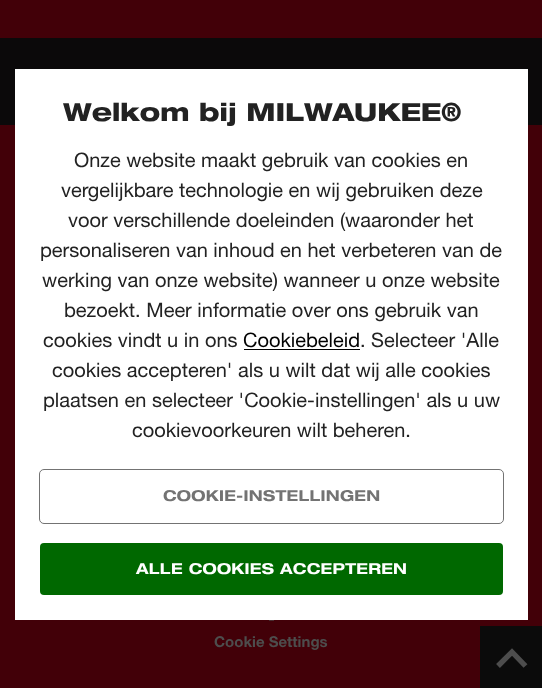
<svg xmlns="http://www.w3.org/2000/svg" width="542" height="688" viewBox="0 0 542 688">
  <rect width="100%" height="100%" fill="#420008"/>
  <path d="M0 38h542v87H0z" fill="#0b090a"/>
  <path d="M15 69h513v551H15z" fill="#fff"/>
  <path d="M244 349h116v1H244z" fill="#000"/>
  <rect x="39.5" y="469.5" width="464" height="54" rx="4.5" fill="none" stroke="#737373"/>
  <rect x="40" y="543" width="463" height="52" rx="4" fill="#006800"/>
  <path d="M269 620h5v1H269z" fill="#482e31"/>
  <path d="M480 626h62v62H480z" fill="#0b0b0b"/>
  <path d="M498 666L512 652L525.5 666" fill="none" stroke="#4d4d4d" stroke-width="5.4"/>
  <text x="63" y="121" font-family="'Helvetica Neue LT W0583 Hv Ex'" font-size="25" font-weight="bold" fill="#222">Welkom bij MILWAUKEE®</text>
  <g font-family="'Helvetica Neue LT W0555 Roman'" font-size="20" fill="#222">
    <text x="74" y="167">Onze website maakt gebruik van cookies en</text>
    <text x="61" y="197">vergelijkbare technologie en wij gebruiken deze</text>
    <text x="68" y="227">voor verschillende doeleinden (waaronder het</text>
    <text x="40" y="257">personaliseren van inhoud en het verbeteren van de</text>
    <text x="42" y="287">werking van onze website) wanneer u onze website</text>
    <text x="64" y="317">bezoekt. Meer informatie over ons gebruik van</text>
    <text x="43" y="347">cookies vindt u in ons</text>
  </g>
  <text x="243" y="347" font-family="'Helvetica Neue LT W0555 Roman'" font-size="20" fill="#000">Cookiebeleid</text>
  <g font-family="'Helvetica Neue LT W0555 Roman'" font-size="20" fill="#222">
    <text x="360" y="347">. Selecteer 'Alle</text>
    <text x="52" y="377">cookies accepteren' als u wilt dat wij alle cookies</text>
    <text x="43" y="407">plaatsen en selecteer 'Cookie-instellingen' als u uw</text>
    <text x="132" y="437">cookievoorkeuren wilt beheren.</text>
  </g>
  <text x="163" y="501" font-family="'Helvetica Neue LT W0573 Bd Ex'" font-size="15" font-weight="bold" letter-spacing="0.25" fill="#737373">COOKIE-INSTELLINGEN</text>
  <text x="136" y="574" font-family="'Helvetica Neue LT W0573 Bd Ex'" font-size="15" font-weight="bold" letter-spacing="0.25" fill="#fff">ALLE COOKIES ACCEPTEREN</text>
  <text x="214" y="647" font-family="'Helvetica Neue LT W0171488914'" font-size="15" font-weight="bold" fill="#4d4d4d">Cookie Settings</text>
</svg>
